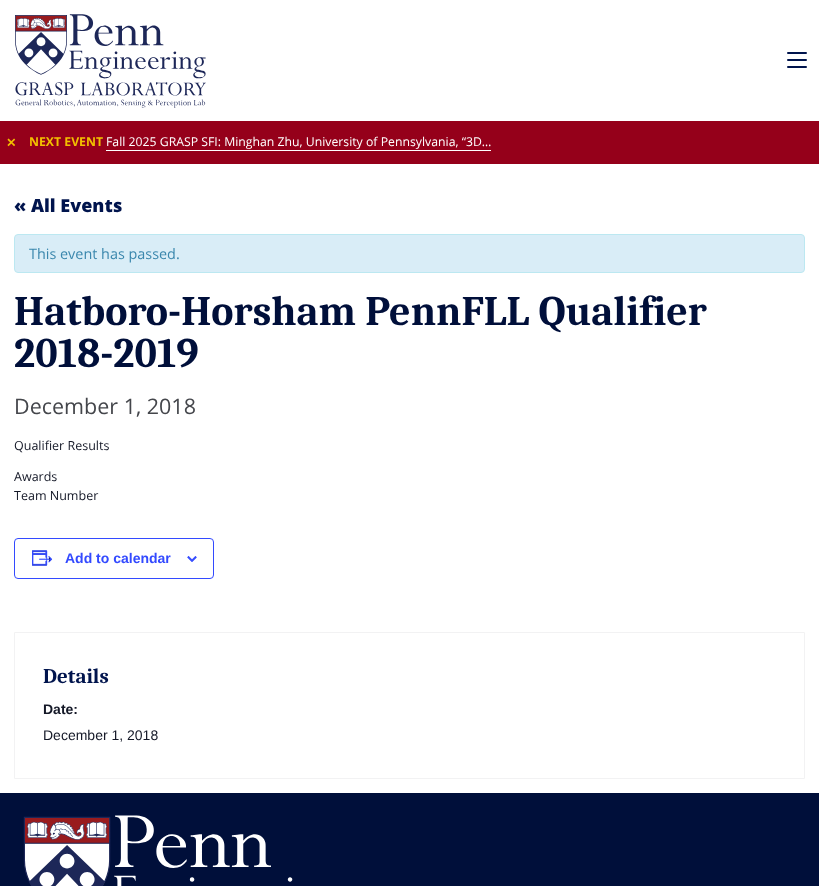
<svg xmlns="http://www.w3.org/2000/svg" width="819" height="886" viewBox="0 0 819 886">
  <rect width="100%" height="100%" fill="#fff"/>
  <image x="15" y="14" width="191" height="94" href="img/1.png"/>
  <rect x="787" y="52" width="20" height="2" rx="1" fill="#00144d"/>
  <rect x="787" y="59" width="20" height="2" rx="1" fill="#00144d"/>
  <rect x="787" y="66" width="20" height="2" rx="1" fill="#00144d"/>
  <path d="M0 121h819v43H0z" fill="#95001a"/>
  <path d="M106 150h385v1H106z" fill="#fff"/>
  <rect x="14.5" y="234.5" width="790" height="38" rx="3.5" fill="#d9edf7" stroke="#bce8f1"/>
  <rect x="14.5" y="538.5" width="199" height="40" rx="3.5" fill="none" stroke="#334aff"/>
  <image x="32" y="550" width="21" height="16" href="img/2.png"/>
  <image x="187" y="556" width="10" height="6" href="img/3.png"/>
  <path d="M14.5 632.5h790v146H14.5z" fill="none" stroke="#f2f2f3"/>
  <path d="M0 793h819v93H0z" fill="#000f3a"/>
  <image x="23" y="815" width="270" height="71" href="img/4.png"/>
  <text x="6" y="147" font-family="DejaVu Sans" font-size="12.25" font-weight="bold" fill="#f2c100">✕</text>
  <text x="29" y="146" font-family="Open Sans" font-size="12.25" font-weight="bold" fill="#f2c100">NEXT EVENT</text>
  <text x="106" y="146" font-family="Open Sans" font-size="12.25" fill="#fff">Fall 2025 GRASP SFI: Minghan Zhu, University of Pennsylvania, “3D…</text>
  <text x="14" y="212" font-family="Open Sans" font-size="18" font-weight="800" fill="#00144d">« All Events</text>
  <text x="29" y="259" font-family="Open Sans" font-size="14.4" fill="#3a87ad">This event has passed.</text>
  <g font-family="Caladea" font-size="42" font-weight="bold" fill="#000f3a">
    <text x="14" y="325">Hatboro-Horsham PennFLL Qualifier</text>
    <text x="14" y="367">2018-2019</text>
  </g>
  <text x="14" y="414" font-family="Open Sans" font-size="21.5" fill="#44464b">December 1, 2018</text>
  <g font-family="Open Sans" font-size="12.5" fill="#141827">
    <text x="14" y="450">Qualifier Results</text>
    <text x="14" y="481">Awards</text>
    <text x="14" y="500">Team Number</text>
  </g>
  <text x="65" y="563" font-family="Liberation Sans" font-size="14" font-weight="bold" fill="#334aff">Add to calendar</text>
  <text x="43" y="683" font-family="Caladea" font-size="21" font-weight="bold" fill="#00144d">Details</text>
  <text x="43" y="714" font-family="Liberation Sans" font-size="14" font-weight="bold" fill="#141827">Date:</text>
  <text x="43" y="740" font-family="Liberation Sans" font-size="14" fill="#141827">December 1, 2018</text>
</svg>
